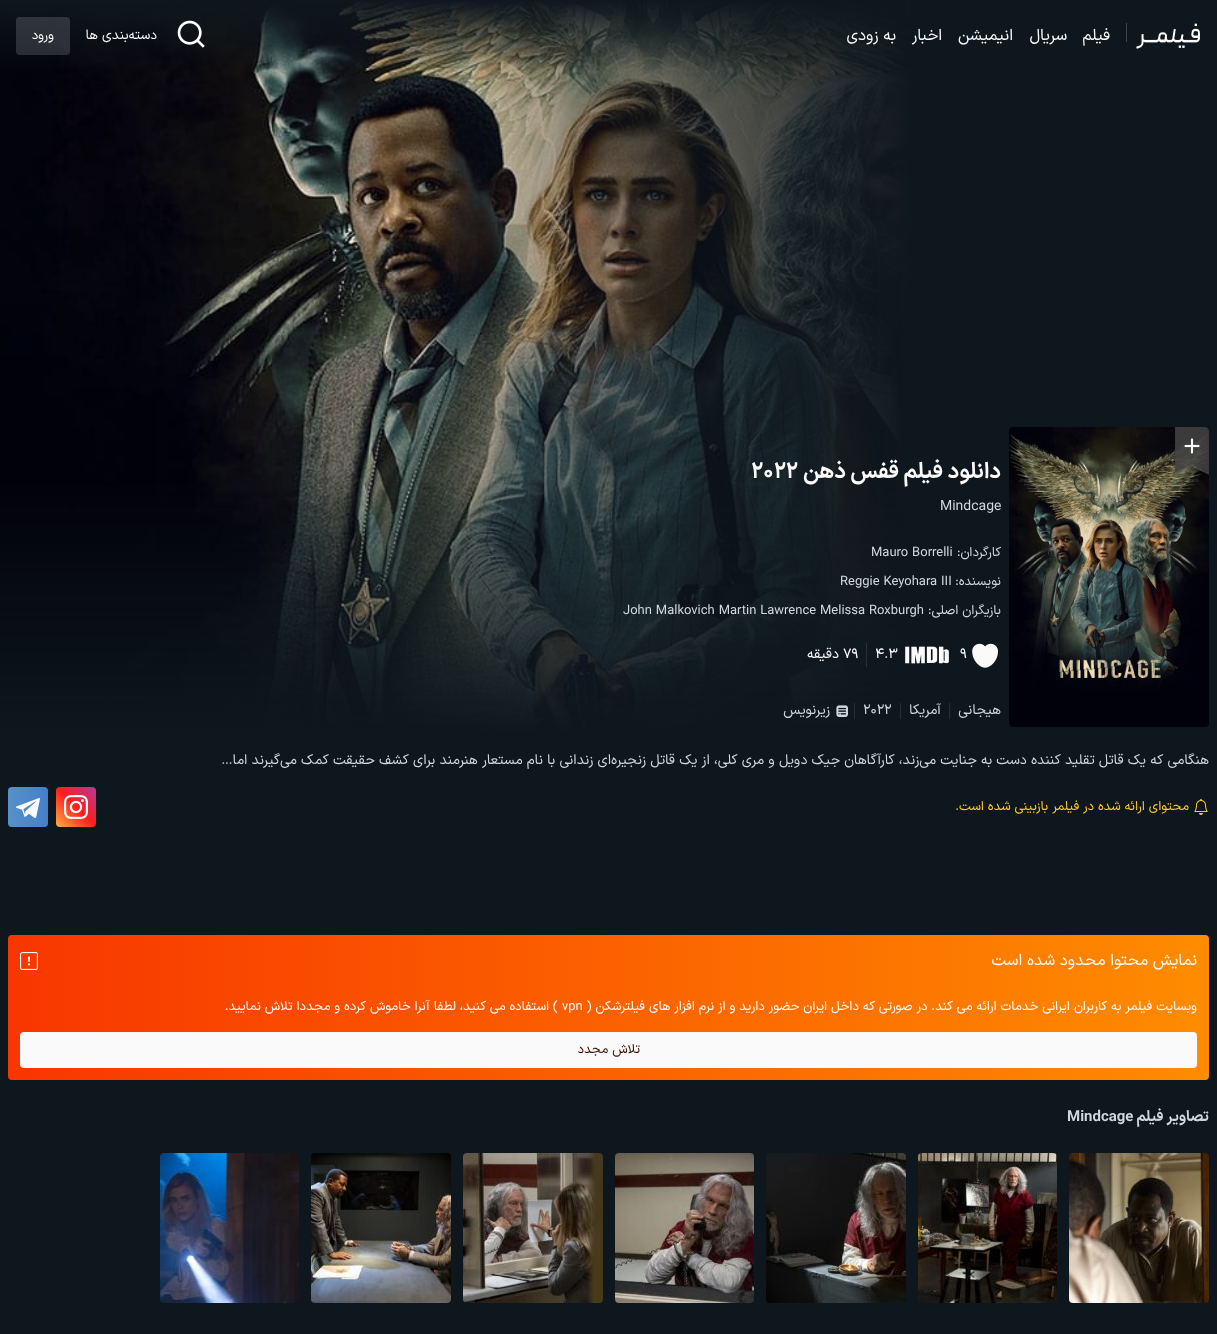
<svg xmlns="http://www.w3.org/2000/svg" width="1217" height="1334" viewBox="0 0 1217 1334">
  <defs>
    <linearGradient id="g1" gradientUnits="userSpaceOnUse" x1="609" y1="0" x2="609" y2="72"><stop offset="0" stop-color="#0e171e"/><stop offset="1" stop-color="#0e171e" stop-opacity="0"/></linearGradient>
    <linearGradient id="g2" gradientUnits="userSpaceOnUse" x1="56" y1="827" x2="96" y2="787"><stop offset="0" stop-color="#fcb045"/><stop offset="0.5" stop-color="#fd1d1d"/><stop offset="1" stop-color="#b43a98"/></linearGradient>
    <linearGradient id="g3" gradientUnits="userSpaceOnUse" x1="8" y1="807" x2="48" y2="807"><stop offset="0" stop-color="#5691c8"/><stop offset="1" stop-color="#457fca"/></linearGradient>
    <linearGradient id="g4" gradientUnits="userSpaceOnUse" x1="8" y1="1008" x2="1209" y2="1008"><stop offset="0" stop-color="#f83600"/><stop offset="1" stop-color="#fe8c00"/></linearGradient>
  </defs>
  <rect width="100%" height="100%" fill="#0e171e"/>
  <image x="0" y="0" width="913" height="735" href="img/3.png"/>
  <path d="M0 0h905v70H0z" fill="url(#g1)"/>
  <image x="1136" y="23" width="64" height="26" href="img/1.png"/>
  <path d="M1126 23h1v19H1126z" fill="#3e454b"/>
  <image x="177" y="20" width="28" height="28" href="img/2.png"/>
  <rect x="16" y="17" width="54" height="38" rx="4" fill="#ffffff26"/>
  <image x="1009" y="427" width="200" height="300" href="img/4.png"/>
  <image x="1175" y="427" width="34" height="48" href="img/5.png"/>
  <image x="1184" y="438" width="16" height="16" href="img/6.png"/>
  <image x="972" y="643" width="26" height="25" href="img/7.png"/>
  <image x="905" y="646" width="44" height="18" href="img/8.png"/>
  <path d="M866 643h1v24H866z" fill="#282f35"/>
  <path d="M949 703h1v16H949z" fill="#262e35"/>
  <path d="M900 703h1v16H900z" fill="#262e35"/>
  <path d="M854 703h1v16H854z" fill="#272f35"/>
  <image x="836" y="705" width="12" height="12" href="img/9.png"/>
  <image x="1194" y="799" width="14" height="16" href="img/10.png"/>
  <rect x="56" y="787" width="40" height="40" rx="4" fill="url(#g2)"/>
  <image x="64" y="795" width="24" height="24" href="img/11.png"/>
  <rect x="8" y="787" width="40" height="40" rx="4" fill="url(#g3)"/>
  <image x="16" y="798" width="24" height="20" href="img/12.png"/>
  <rect x="8" y="935" width="1201" height="145" rx="4" fill="url(#g4)"/>
  <image x="20" y="952" width="18" height="18" href="img/13.png"/>
  <rect x="20" y="1032" width="1177" height="36" rx="4" fill="#fafafa"/>
  <image x="1069" y="1153" width="140" height="150" href="img/14.png"/>
  <image x="918" y="1153" width="139" height="150" href="img/15.png"/>
  <image x="766" y="1153" width="140" height="150" href="img/16.png"/>
  <image x="615" y="1153" width="139" height="150" href="img/17.png"/>
  <image x="463" y="1153" width="140" height="150" href="img/18.png"/>
  <image x="311" y="1153" width="140" height="150" href="img/19.png"/>
  <image x="160" y="1153" width="139" height="150" href="img/20.png"/>
  <g font-family="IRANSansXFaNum" font-size="16" direction="rtl" fill="#fafafa">
    <text x="1110" y="40">فیلم</text>
    <text x="1067" y="40">سریال</text>
    <text x="1013" y="40">انیمیشن</text>
    <text x="942" y="40">اخبار</text>
    <text x="896" y="40">به زودی</text>
  </g>
  <text x="157" y="39" font-family="IRANSansXFaNum" font-size="13.5" direction="rtl" fill="#fafafa">دسته‌بندی ها</text>
  <text x="54" y="39" font-family="IRANSansXFaNum" font-size="13" direction="rtl" fill="#fafafa">ورود</text>
  <text x="1001" y="478" font-family="IRANSansXFaNum" font-size="22" font-weight="bold" direction="rtl" fill="#fafafa">دانلود فیلم قفس ذهن</text>
  <text x="751" y="478" font-family="IRANSansXFaNum" font-size="22" font-weight="bold" fill="#fafafa">2022</text>
  <text x="940" y="510" font-family="IRANSansXFaNum" font-size="14" fill="#cfd8dc">Mindcage</text>
  <text x="1001" y="556" font-family="IRANSansXFaNum" font-size="13" direction="rtl" fill="#cfd8dc">کارگردان:</text>
  <text x="871" y="556" font-family="IRANSansXFaNum" font-size="13" fill="#cfd8dc">Mauro Borrelli</text>
  <text x="1001" y="585" font-family="IRANSansXFaNum" font-size="13" direction="rtl" fill="#cfd8dc">نویسنده:</text>
  <text x="840" y="585" font-family="IRANSansXFaNum" font-size="13" fill="#cfd8dc">Reggie Keyohara III</text>
  <text x="1001" y="614" font-family="IRANSansXFaNum" font-size="13" direction="rtl" fill="#cfd8dc">بازیگران اصلی:</text>
  <text x="623" y="614" font-family="IRANSansXFaNum" font-size="13" fill="#cfd8dc">John Malkovich Martin Lawrence Melissa Roxburgh</text>
  <g font-family="IRANSansXFaNum" font-size="14" fill="#fafafa">
    <text x="960" y="658">9</text>
    <text x="875" y="658">4.3</text>
    <text x="843" y="658">79</text>
  </g>
  <text x="839" y="658" font-family="IRANSansXFaNum" font-size="14" direction="rtl" fill="#fafafa">دقیقه</text>
  <g font-family="IRANSansXFaNum" font-size="14" direction="rtl" fill="#cfd8dc">
    <text x="1001" y="714">هیجانی</text>
    <text x="941" y="714">آمریکا</text>
  </g>
  <text x="863" y="714" font-family="IRANSansXFaNum" font-size="14" fill="#cfd8dc">2022</text>
  <g font-family="IRANSansXFaNum" font-size="14" direction="rtl" fill="#cfd8dc">
    <text x="830" y="714">زیرنویس</text>
    <text x="1209" y="764">هنگامی که یک قاتل تقلید کننده دست به جنایت می‌زند، کارآگاهان جیک دویل و مری کلی، از یک قاتل زنجیره‌ای زندانی با نام مستعار هنرمند برای کشف حقیقت کمک می‌گیرند اما…</text>
  </g>
  <text x="1189" y="810" font-family="IRANSansXFaNum" font-size="13" direction="rtl" fill="#ffca28">محتوای ارائه شده در فیلمر بازبینی شده است.</text>
  <text x="1197" y="965" font-family="IRANSansXFaNum" font-size="16" direction="rtl" fill="#fafafa">نمایش محتوا محدود شده است</text>
  <text x="1197" y="1010" font-family="IRANSansXFaNum" font-size="13" direction="rtl" fill="#fafafa">وبسایت فیلمر به کاربران ایرانی خدمات ارائه می کند. در صورتی که داخل ایران حضور دارید و از نرم افزار های فیلترشکن (</text>
  <text x="562" y="1010" font-family="IRANSansXFaNum" font-size="13" fill="#fafafa">vpn</text>
  <text x="558" y="1010" font-family="IRANSansXFaNum" font-size="13" direction="rtl" fill="#fafafa">) استفاده می کنید، لطفا آنرا خاموش کرده و مجددا تلاش نمایید.</text>
  <text x="640" y="1053" font-family="IRANSansXFaNum" font-size="13" direction="rtl" fill="#3b0d00">تلاش مجدد</text>
  <text x="1209" y="1121" font-family="IRANSansXFaNum" font-size="15" font-weight="bold" direction="rtl" fill="#cfd8dc">تصاویر فیلم</text>
  <text x="1067" y="1121" font-family="IRANSansXFaNum" font-size="15" font-weight="bold" fill="#cfd8dc">Mindcage</text>
</svg>
